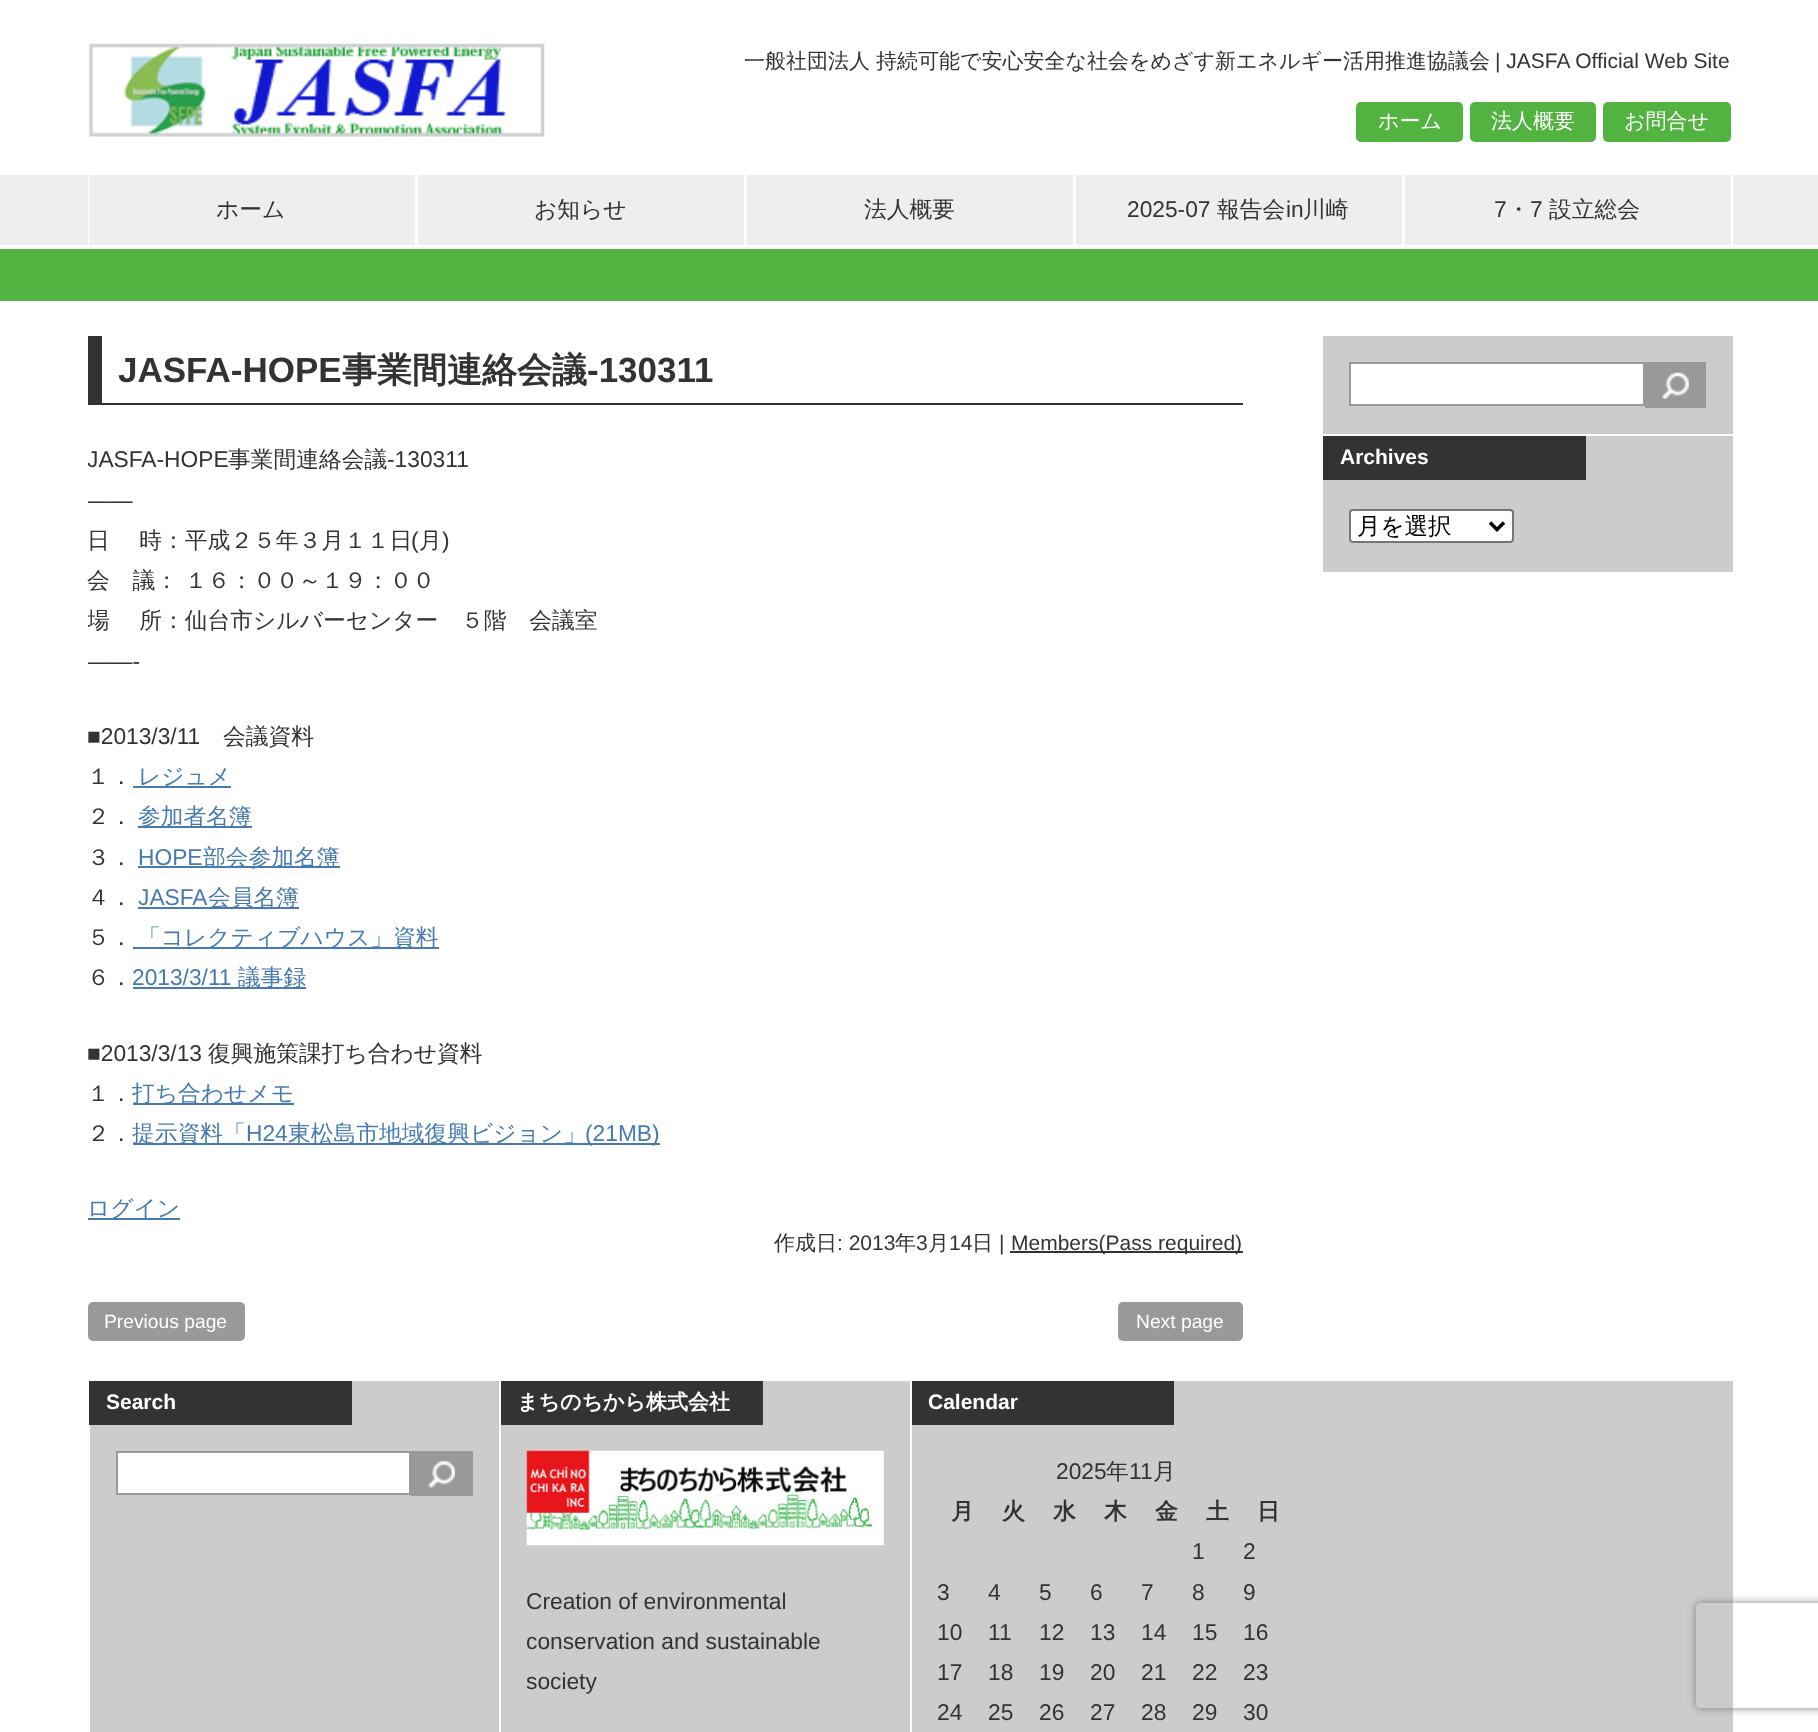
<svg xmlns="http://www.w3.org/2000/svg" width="1818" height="1732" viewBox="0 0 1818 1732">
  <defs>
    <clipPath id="clip1"><path d="M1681 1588H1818V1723H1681ZM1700 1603H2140C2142 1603 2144 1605 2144 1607V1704C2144 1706 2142 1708 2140 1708H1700C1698 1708 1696 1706 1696 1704V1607C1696 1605 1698 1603 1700 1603Z" clip-rule="evenodd"/></clipPath>
    <clipPath id="clip2"><path d="M88 336h1155v1045H88z"/></clipPath>
  </defs>
  <rect width="100%" height="100%" fill="#fff"/>
  <image x="89" y="43" width="456" height="94" href="img/1.png"/>
  <rect x="1356" y="102" width="107" height="40" rx="5" fill="#52b340"/>
  <rect x="1470" y="102" width="126" height="40" rx="5" fill="#52b340"/>
  <rect x="1603" y="102" width="128" height="40" rx="5" fill="#52b340"/>
  <path d="M0 175h1818v70H0z" fill="#eee"/>
  <path d="M88 175h1645v70H88z" fill="#fff"/>
  <path d="M89 175h326v70H89z" fill="#eee"/>
  <path d="M418 175h326v70H418z" fill="#eee"/>
  <path d="M747 175h326v70H747z" fill="#eee"/>
  <path d="M1076 175h326v70H1076z" fill="#eee"/>
  <path d="M1405 175h326v70H1405z" fill="#eee"/>
  <path d="M0 249h1818v52H0z" fill="#52b340"/>
  <path d="M88 403h1155v2H88z" fill="#333"/>
  <path d="M88 336h14v67H88z" fill="#333"/>
  <path d="M133 786h98v2H133z" fill="#477bb0"/>
  <path d="M138 826h114v2H138z" fill="#477bb0"/>
  <path d="M138 866h202v2H138z" fill="#477bb0"/>
  <path d="M138 907h161v2H138z" fill="#477bb0"/>
  <path d="M133 947h306v2H133z" fill="#477bb0"/>
  <path d="M133 987h173v2H133z" fill="#477bb0"/>
  <path d="M133 1103h161v2H133z" fill="#477bb0"/>
  <path d="M133 1143h527v2H133z" fill="#477bb0"/>
  <path d="M1010 1251h233v2H1010z" fill="#333"/>
  <path d="M88 1218h92v2H88z" fill="#477bb0"/>
  <rect x="88" y="1302" width="157" height="39" rx="5" fill="#999"/>
  <rect x="1118" y="1302" width="125" height="39" rx="5" fill="#999"/>
  <path d="M1323 336h410v98H1323z" fill="#ccc"/>
  <path d="M1350 363h294v42H1350z" fill="#fff" stroke="#999" stroke-width="2"/>
  <path d="M1645 362h61v46H1645z" fill="#999"/>
  <image x="1662" y="372" width="27" height="27" href="img/2.png"/>
  <path d="M1323 436h410v136H1323z" fill="#ccc"/>
  <path d="M1323 436h263v44H1323z" fill="#333"/>
  <rect x="1350" y="510" width="163" height="32" rx="3" fill="#fff" stroke="#767676" stroke-width="2"/>
  <path d="M1490 522.5L1497 529.5L1504 522.5" fill="none" stroke="#000" stroke-width="3.5"/>
  <path d="M90 1381h1643v351H90z" fill="#ccc"/>
  <path d="M89 1381h263v44H89z" fill="#333"/>
  <path d="M117 1452h293v42H117z" fill="#fff" stroke="#999" stroke-width="2"/>
  <path d="M411 1451h62v45H411z" fill="#999"/>
  <image x="428" y="1461" width="27" height="27" href="img/3.png"/>
  <path d="M499 1381h2v351H499z" fill="#fff"/>
  <path d="M501 1381h262v44H501z" fill="#333"/>
  <image x="526" y="1450" width="358" height="96" href="img/4.png"/>
  <path d="M910 1381h2v351H910z" fill="#fff"/>
  <path d="M912 1381h262v44H912z" fill="#333"/>
  <g clip-path="url(#clip1)">
    <rect x="1696" y="1603" width="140" height="105" rx="4" fill="#808080" filter="blur(4.5px)"/>
  </g>
  <g font-family="WenQuanYi Zen Hei" font-size="21" font-weight="500" fill="#333">
    <text x="744" y="68">一般社団法人</text>
    <text x="876" y="68">持続可能で安心安全な社会をめざす新エネルギー活用推進協議会</text>
  </g>
  <text x="1495" y="68" font-family="Liberation Sans" font-size="21" fill="#333">| JASFA Official Web Site</text>
  <g font-family="WenQuanYi Zen Hei" font-size="21" font-weight="500" fill="#fff">
    <text x="1378" y="128">ホーム</text>
    <text x="1491" y="128">法人概要</text>
    <text x="1624" y="128">お問合せ</text>
  </g>
  <g font-family="WenQuanYi Zen Hei" font-size="22.75" font-weight="500" fill="#333">
    <text x="216" y="217">ホーム</text>
    <text x="534" y="217">お知らせ</text>
    <text x="864" y="217">法人概要</text>
  </g>
  <text x="1127" y="217" font-family="Liberation Sans" font-size="22.75" fill="#333">2025-07</text>
  <text x="1217" y="217" font-family="WenQuanYi Zen Hei" font-size="22.75" font-weight="500" fill="#333">報告会</text>
  <text x="1286" y="217" font-family="Liberation Sans" font-size="22.75" fill="#333">in</text>
  <text x="1303" y="217" font-family="WenQuanYi Zen Hei" font-size="22.75" font-weight="500" fill="#333">川崎</text>
  <text x="1494" y="217" font-family="Liberation Sans" font-size="22.75" fill="#333">7</text>
  <text x="1507" y="217" font-family="WenQuanYi Zen Hei" font-size="22.75" font-weight="500" fill="#333">・</text>
  <text x="1530" y="217" font-family="Liberation Sans" font-size="22.75" fill="#333">7</text>
  <text x="1549" y="217" font-family="WenQuanYi Zen Hei" font-size="22.75" font-weight="500" fill="#333">設立総会</text>
  <text x="118" y="382" font-family="Liberation Sans" font-size="35" font-weight="bold" fill="#333">JASFA-HOPE</text>
  <text x="342" y="382" font-family="WenQuanYi Zen Hei" font-size="35" font-weight="bold" fill="#333">事業間連絡会議</text>
  <text x="587" y="382" font-family="Liberation Sans" font-size="35" font-weight="bold" fill="#333">-130311</text>
  <g clip-path="url(#clip2)">
    <text x="87" y="467" font-family="Liberation Sans" font-size="22.75" fill="#333">JASFA-HOPE</text>
  </g>
  <text x="228" y="467" font-family="WenQuanYi Zen Hei" font-size="22.75" font-weight="500" fill="#333">事業間連絡会議</text>
  <text x="387" y="467" font-family="Liberation Sans" font-size="22.75" fill="#333">-130311</text>
  <g clip-path="url(#clip2)">
    <text x="87" y="508" font-family="Liberation Sans" font-size="22.75" fill="#333">——</text>
  </g>
  <text x="87" y="548" font-family="WenQuanYi Zen Hei" font-size="22.75" font-weight="500" fill="#333">日 　時：平成２５年３月１１日</text>
  <text x="411" y="548" font-family="Liberation Sans" font-size="22.75" fill="#333">(</text>
  <text x="419" y="548" font-family="WenQuanYi Zen Hei" font-size="22.75" font-weight="500" fill="#333">月</text>
  <text x="442" y="548" font-family="Liberation Sans" font-size="22.75" fill="#333">)</text>
  <text x="87" y="588" font-family="WenQuanYi Zen Hei" font-size="22.75" font-weight="500" fill="#333">会　議： １６：００～１９：００</text>
  <g clip-path="url(#clip2)">
    <text x="87" y="628" font-family="WenQuanYi Zen Hei" font-size="22.75" font-weight="500" fill="#333">場 　所：仙台市シルバーセンター　５階　会議室</text>
    <text x="87" y="669" font-family="Liberation Sans" font-size="22.75" fill="#333">——-</text>
  </g>
  <text x="87" y="744" font-family="Liberation Sans" font-size="22.75" fill="#333">■2013/3/11</text>
  <g font-family="WenQuanYi Zen Hei" font-size="22.75" font-weight="500" fill="#333">
    <text x="223" y="744">会議資料</text>
    <text x="87" y="784">１．</text>
  </g>
  <text x="138" y="784" font-family="WenQuanYi Zen Hei" font-size="22.75" font-weight="500" fill="#477bb0">レジュメ</text>
  <text x="87" y="824" font-family="WenQuanYi Zen Hei" font-size="22.75" font-weight="500" fill="#333">２．</text>
  <text x="138" y="824" font-family="WenQuanYi Zen Hei" font-size="22.75" font-weight="500" fill="#477bb0">参加者名簿</text>
  <text x="87" y="865" font-family="WenQuanYi Zen Hei" font-size="22.75" font-weight="500" fill="#333">３．</text>
  <text x="138" y="865" font-family="Liberation Sans" font-size="22.75" fill="#477bb0">HOPE</text>
  <text x="203" y="865" font-family="WenQuanYi Zen Hei" font-size="22.75" font-weight="500" fill="#477bb0">部会参加名簿</text>
  <text x="87" y="905" font-family="WenQuanYi Zen Hei" font-size="22.75" font-weight="500" fill="#333">４．</text>
  <text x="138" y="905" font-family="Liberation Sans" font-size="22.75" fill="#477bb0">JASFA</text>
  <text x="208" y="905" font-family="WenQuanYi Zen Hei" font-size="22.75" font-weight="500" fill="#477bb0">会員名簿</text>
  <text x="87" y="945" font-family="WenQuanYi Zen Hei" font-size="22.75" font-weight="500" fill="#333">５．</text>
  <text x="138" y="945" font-family="WenQuanYi Zen Hei" font-size="22.75" font-weight="500" fill="#477bb0">「コレクティブハウス」資料</text>
  <text x="87" y="985" font-family="WenQuanYi Zen Hei" font-size="22.75" font-weight="500" fill="#333">６．</text>
  <text x="132" y="985" font-family="Liberation Sans" font-size="22.75" fill="#477bb0">2013/3/11</text>
  <text x="238" y="985" font-family="WenQuanYi Zen Hei" font-size="22.75" font-weight="500" fill="#477bb0">議事録</text>
  <text x="87" y="1061" font-family="Liberation Sans" font-size="22.75" fill="#333">■2013/3/13</text>
  <g font-family="WenQuanYi Zen Hei" font-size="22.75" font-weight="500" fill="#333">
    <text x="208" y="1061">復興施策課打ち合わせ資料</text>
    <text x="87" y="1101">１．</text>
  </g>
  <text x="132" y="1101" font-family="WenQuanYi Zen Hei" font-size="22.75" font-weight="500" fill="#477bb0">打ち合わせメモ</text>
  <text x="87" y="1141" font-family="WenQuanYi Zen Hei" font-size="22.75" font-weight="500" fill="#333">２．</text>
  <text x="132" y="1141" font-family="WenQuanYi Zen Hei" font-size="22.75" font-weight="500" fill="#477bb0">提示資料「</text>
  <text x="246" y="1141" font-family="Liberation Sans" font-size="22.75" fill="#477bb0">H24</text>
  <text x="288" y="1141" font-family="WenQuanYi Zen Hei" font-size="22.75" font-weight="500" fill="#477bb0">東松島市地域復興ビジョン」</text>
  <text x="585" y="1141" font-family="Liberation Sans" font-size="22.75" fill="#477bb0">(21MB)</text>
  <text x="774" y="1250" font-family="WenQuanYi Zen Hei" font-size="21" font-weight="500" fill="#333">作成日</text>
  <text x="837" y="1250" font-family="Liberation Sans" font-size="21" fill="#333">: 2013</text>
  <text x="895" y="1250" font-family="WenQuanYi Zen Hei" font-size="21" font-weight="500" fill="#333">年</text>
  <text x="916" y="1250" font-family="Liberation Sans" font-size="21" fill="#333">3</text>
  <text x="928" y="1250" font-family="WenQuanYi Zen Hei" font-size="21" font-weight="500" fill="#333">月</text>
  <text x="949" y="1250" font-family="Liberation Sans" font-size="21" fill="#333">14</text>
  <text x="972" y="1250" font-family="WenQuanYi Zen Hei" font-size="21" font-weight="500" fill="#333">日</text>
  <g font-family="Liberation Sans" font-size="21" fill="#333">
    <text x="999" y="1250">|</text>
    <text x="1011" y="1250">Members(Pass required)</text>
  </g>
  <text x="87" y="1216" font-family="WenQuanYi Zen Hei" font-size="22.75" font-weight="500" fill="#477bb0">ログイン</text>
  <g font-family="Liberation Sans" font-size="19.25" fill="#fff">
    <text x="104" y="1328">Previous page</text>
    <text x="1136" y="1328">Next page</text>
  </g>
  <text x="1340" y="464" font-family="Liberation Sans" font-size="21" font-weight="bold" fill="#fff">Archives</text>
  <text x="1357" y="534" font-family="WenQuanYi Zen Hei" font-size="23.5" font-weight="500" fill="#000">月を選択</text>
  <text x="106" y="1409" font-family="Liberation Sans" font-size="21" font-weight="bold" fill="#fff">Search</text>
  <text x="517" y="1409" font-family="WenQuanYi Zen Hei" font-size="21" font-weight="bold" fill="#fff">まちのちから株式会社</text>
  <g font-family="Liberation Sans" font-size="22.75" fill="#333">
    <text x="526" y="1609">Creation of environmental</text>
    <text x="526" y="1649">conservation and sustainable</text>
    <text x="526" y="1689">society</text>
  </g>
  <text x="928" y="1409" font-family="Liberation Sans" font-size="21" font-weight="bold" fill="#fff">Calendar</text>
  <text x="1056" y="1479" font-family="Liberation Sans" font-size="22.75" fill="#333">2025</text>
  <text x="1106" y="1479" font-family="WenQuanYi Zen Hei" font-size="22.75" font-weight="500" fill="#333">年</text>
  <text x="1129" y="1479" font-family="Liberation Sans" font-size="22.75" fill="#333">11</text>
  <text x="1153" y="1479" font-family="WenQuanYi Zen Hei" font-size="22.75" font-weight="500" fill="#333">月</text>
  <g font-family="WenQuanYi Zen Hei" font-size="22.75" font-weight="bold" fill="#333">
    <text x="951" y="1519">月</text>
    <text x="1002" y="1519">火</text>
    <text x="1053" y="1519">水</text>
    <text x="1104" y="1519">木</text>
    <text x="1155" y="1519">金</text>
    <text x="1206" y="1519">土</text>
    <text x="1257" y="1519">日</text>
  </g>
  <g font-family="Liberation Sans" font-size="22.75" fill="#333">
    <text x="1192" y="1559">1</text>
    <text x="1243" y="1559">2</text>
    <text x="937" y="1600">3</text>
    <text x="988" y="1600">4</text>
    <text x="1039" y="1600">5</text>
    <text x="1090" y="1600">6</text>
    <text x="1141" y="1600">7</text>
    <text x="1192" y="1600">8</text>
    <text x="1243" y="1600">9</text>
    <text x="937" y="1640">10</text>
    <text x="988" y="1640">11</text>
    <text x="1039" y="1640">12</text>
    <text x="1090" y="1640">13</text>
    <text x="1141" y="1640">14</text>
    <text x="1192" y="1640">15</text>
    <text x="1243" y="1640">16</text>
    <text x="937" y="1680">17</text>
    <text x="988" y="1680">18</text>
    <text x="1039" y="1680">19</text>
    <text x="1090" y="1680">20</text>
    <text x="1141" y="1680">21</text>
    <text x="1192" y="1680">22</text>
    <text x="1243" y="1680">23</text>
    <text x="937" y="1720">24</text>
    <text x="988" y="1720">25</text>
    <text x="1039" y="1720">26</text>
    <text x="1090" y="1720">27</text>
    <text x="1141" y="1720">28</text>
    <text x="1192" y="1720">29</text>
    <text x="1243" y="1720">30</text>
  </g>
</svg>
